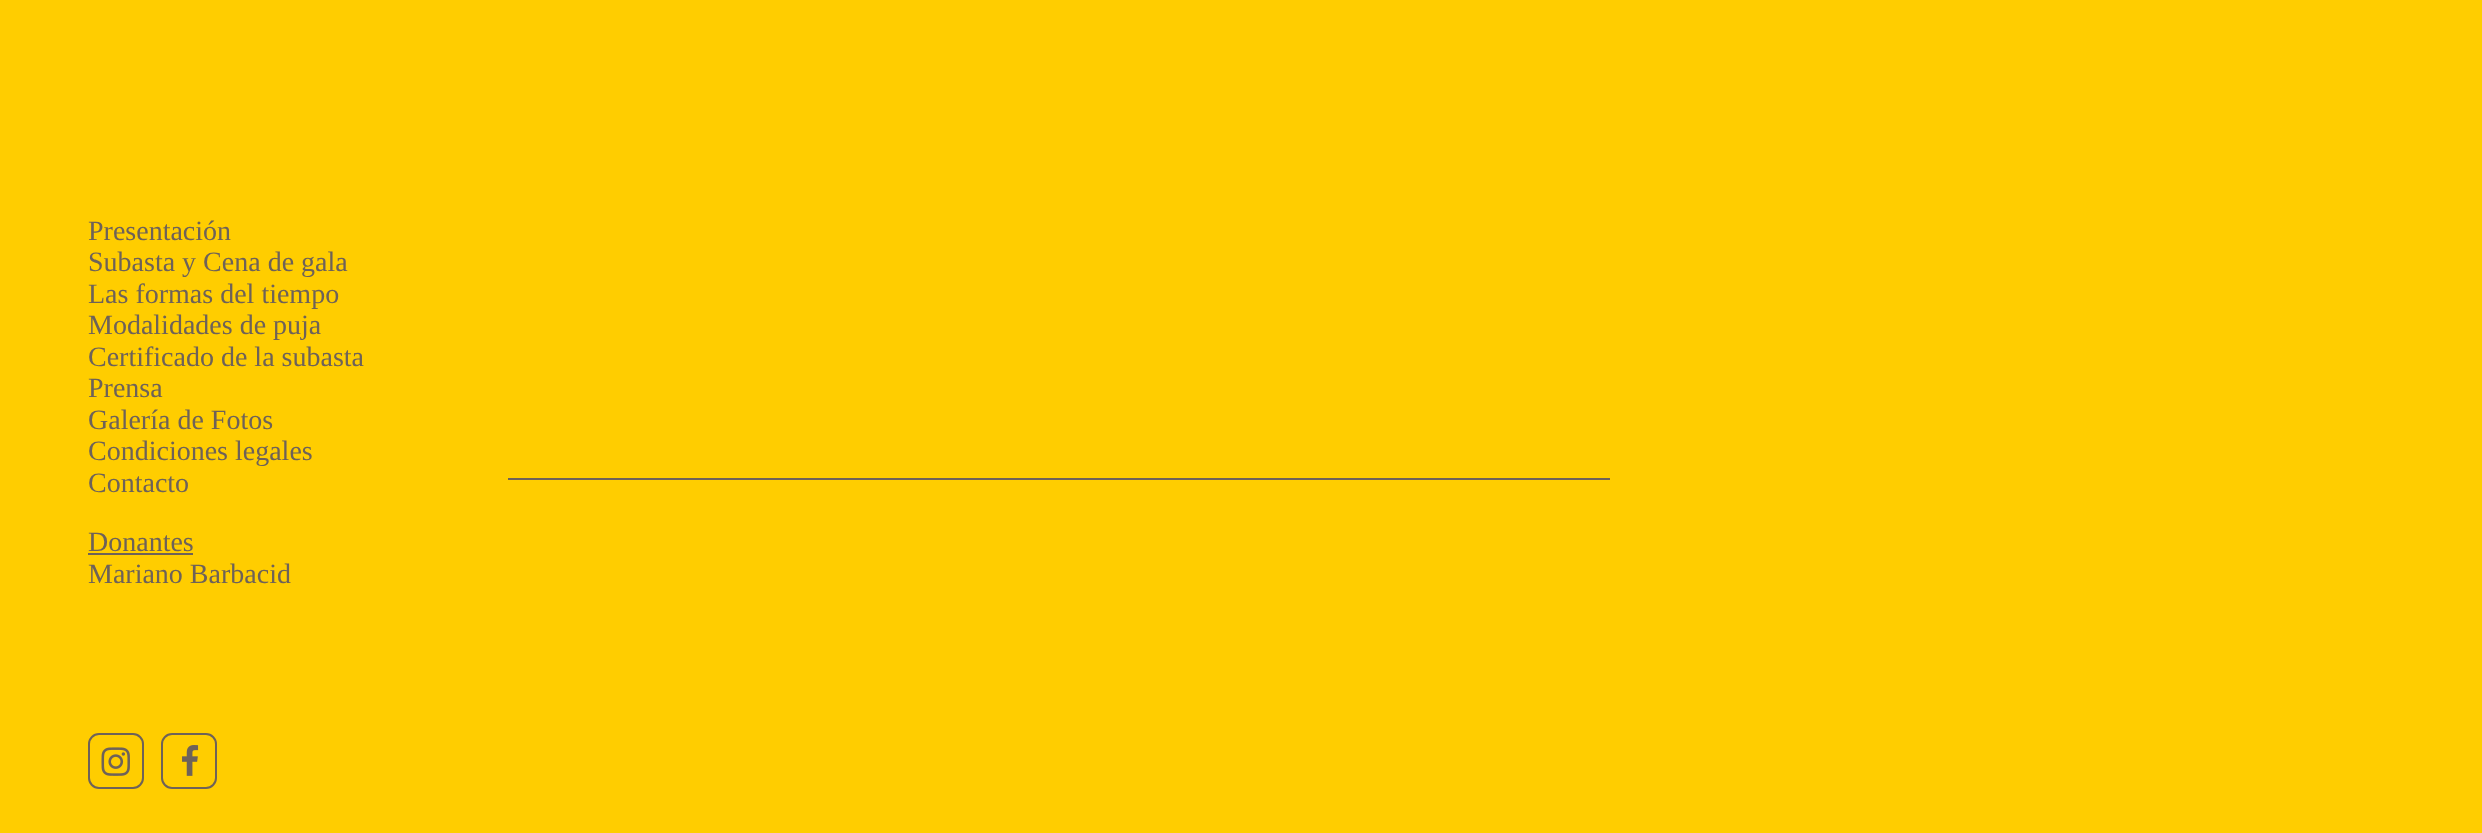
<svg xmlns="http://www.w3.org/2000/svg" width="2482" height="833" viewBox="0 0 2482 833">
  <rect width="100%" height="100%" fill="#ffcd00"/>
  <path d="M88 553h105v2H88z" fill="#6e6259"/>
  <rect x="89" y="734" width="54" height="54" rx="10" fill="none" stroke="#6e6259" stroke-width="2"/>
  <image x="101" y="747" width="29" height="29" href="img/1.png"/>
  <rect x="162" y="734" width="54" height="54" rx="10" fill="none" stroke="#6e6259" stroke-width="2"/>
  <image x="182" y="745" width="17" height="31" href="img/2.png"/>
  <path d="M508 478h1102v2H508z" fill="#6e6259"/>
  <g font-family="Liberation Serif" font-size="28" fill="#6e6259">
    <text x="88" y="240">Presentación</text>
    <text x="88" y="271">Subasta y Cena de gala</text>
    <text x="88" y="303">Las formas del tiempo</text>
    <text x="88" y="334">Modalidades de puja</text>
    <text x="88" y="366">Certificado de la subasta</text>
    <text x="88" y="397">Prensa</text>
    <text x="88" y="429">Galería de Fotos</text>
    <text x="88" y="460">Condiciones legales</text>
    <text x="88" y="492">Contacto</text>
    <text x="88" y="551">Donantes</text>
    <text x="88" y="583">Mariano Barbacid</text>
  </g>
</svg>
